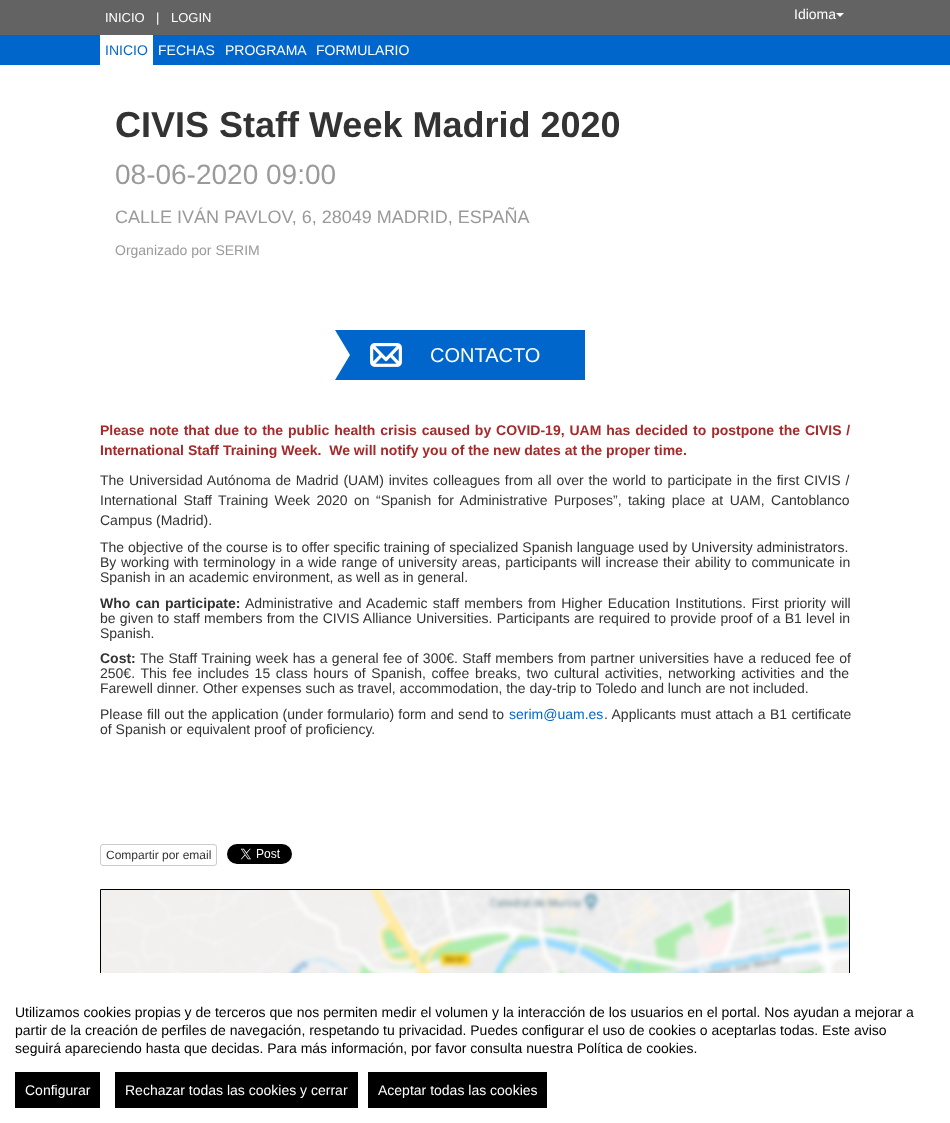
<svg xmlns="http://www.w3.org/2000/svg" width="950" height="1123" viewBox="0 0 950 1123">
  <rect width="100%" height="100%" fill="#fff"/>
  <path d="M0 0h950v35H0z" fill="#636363"/>
  <path d="M836 13H844L840 17Z" fill="#fff"/>
  <path d="M0 35h950v30H0z" fill="#06c"/>
  <path d="M100 35h53v30H100z" fill="#fff"/>
  <path d="M365 330h220v50H365z" fill="#06c"/>
  <path d="M335 330H365L350 355Z" fill="#06c"/>
  <path d="M350 330h15v50H350z" fill="#06c"/>
  <path d="M365 380H335L350 355Z" fill="#06c"/>
  <image x="370" y="343" width="32" height="24" href="img/1.png"/>
  <rect x="100.5" y="844.5" width="116" height="21" rx="2.5" fill="none" stroke="#ccc"/>
  <image x="227" y="844" width="65" height="20" href="img/2.png"/>
  <path d="M100.5 889.5h749v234H100.5z" fill="none" stroke="#000"/>
  <image x="101" y="890" width="748" height="83" href="img/3.png"/>
  <path d="M100 973h750v150H100z" fill="#fff"/>
  <path d="M15 1072h85v36H15z" fill="#000"/>
  <path d="M115 1072h243v36H115z" fill="#000"/>
  <path d="M368 1072h179v36H368z" fill="#000"/>
  <g font-family="Liberation Sans" font-size="13" fill="#fff">
    <text x="105" y="22">INICIO</text>
    <text x="156" y="22">|</text>
    <text x="171" y="22">LOGIN</text>
  </g>
  <text x="794" y="19" font-family="Liberation Sans" font-size="14" fill="#fff">Idioma</text>
  <text x="105" y="55" font-family="Liberation Sans" font-size="14" fill="#06c">INICIO</text>
  <g font-family="Liberation Sans" font-size="14" fill="#fff">
    <text x="158" y="55">FECHAS</text>
    <text x="225" y="55">PROGRAMA</text>
    <text x="316" y="55">FORMULARIO</text>
  </g>
  <text x="115" y="137" font-family="Liberation Sans" font-size="36" font-weight="bold" fill="#333">CIVIS Staff Week Madrid 2020</text>
  <text x="115" y="184" font-family="Liberation Sans" font-size="28" fill="#9a9a9a">08-06-2020 09:00</text>
  <text x="115" y="223" font-family="Liberation Sans" font-size="18" fill="#9a9a9a">CALLE IVÁN PAVLOV, 6, 28049 MADRID, ESPAÑA</text>
  <text x="115" y="255" font-family="Liberation Sans" font-size="14" fill="#9a9a9a">Organizado por SERIM</text>
  <text x="430" y="362" font-family="Liberation Sans" font-size="20" fill="#fff">CONTACTO</text>
  <g font-family="Liberation Sans" font-size="14" font-weight="bold" fill="#a52a2a">
    <text x="100" y="435" word-spacing="1">Please note that due to the public health crisis caused by COVID-19, UAM has decided to postpone the CIVIS /</text>
    <text x="100" y="455" xml:space="preserve">International Staff Training Week.  We will notify you of the new dates at the proper time.</text>
  </g>
  <g font-family="Liberation Sans" font-size="14" fill="#333">
    <text x="100" y="485" word-spacing="0.9">The Universidad Autónoma de Madrid (UAM) invites colleagues from all over the world to participate in the first CIVIS /</text>
    <text x="100" y="505" word-spacing="2.5">International Staff Training Week 2020 on “Spanish for Administrative Purposes”, taking place at UAM, Cantoblanco</text>
    <text x="100" y="525">Campus (Madrid).</text>
    <text x="100" y="552">The objective of the course is to offer specific training of specialized Spanish language used by University administrators.</text>
    <text x="100" y="567" word-spacing="0.7">By working with terminology in a wide range of university areas, participants will increase their ability to communicate in</text>
    <text x="100" y="582">Spanish in an academic environment, as well as in general.</text>
  </g>
  <text x="100" y="608" word-spacing="1.4" font-family="Liberation Sans" font-size="14" font-weight="bold" fill="#333">Who can participate:</text>
  <g font-family="Liberation Sans" font-size="14" fill="#333">
    <text x="245" y="608" word-spacing="1.4">Administrative and Academic staff members from Higher Education Institutions. First priority will</text>
    <text x="100" y="623" word-spacing="0.4">be given to staff members from the CIVIS Alliance Universities. Participants are required to provide proof of a B1 level in</text>
    <text x="100" y="638">Spanish.</text>
  </g>
  <text x="100" y="663" font-family="Liberation Sans" font-size="14" font-weight="bold" fill="#333">Cost:</text>
  <g font-family="Liberation Sans" font-size="14" fill="#333">
    <text x="140" y="663" word-spacing="0.5">The Staff Training week has a general fee of 300€. Staff members from partner universities have a reduced fee of</text>
    <text x="100" y="678" word-spacing="1.75">250€. This fee includes 15 class hours of Spanish, coffee breaks, two cultural activities, networking activities and the</text>
    <text x="100" y="693">Farewell dinner. Other expenses such as travel, accommodation, the day-trip to Toledo and lunch are not included.</text>
    <text x="100" y="719" word-spacing="0.25">Please fill out the application (under formulario) form and send to</text>
  </g>
  <text x="509" y="719" font-family="Liberation Sans" font-size="14" fill="#06c">serim@uam.es</text>
  <g font-family="Liberation Sans" font-size="14" fill="#333">
    <text x="604" y="719" word-spacing="0.5">. Applicants must attach a B1 certificate</text>
    <text x="100" y="734">of Spanish or equivalent proof of proficiency.</text>
  </g>
  <text x="106" y="859" font-family="Liberation Sans" font-size="12" fill="#333">Compartir por email</text>
  <g font-family="Liberation Sans" font-size="14" fill="#000">
    <text x="15" y="1017">Utilizamos cookies propias y de terceros que nos permiten medir el volumen y la interacción de los usuarios en el portal. Nos ayudan a mejorar a</text>
    <text x="15" y="1035">partir de la creación de perfiles de navegación, respetando tu privacidad. Puedes configurar el uso de cookies o aceptarlas todas. Este aviso</text>
    <text x="15" y="1053">seguirá apareciendo hasta que decidas. Para más información, por favor consulta nuestra Política de cookies.</text>
  </g>
  <g font-family="Liberation Sans" font-size="14" fill="#fff">
    <text x="25" y="1095">Configurar</text>
    <text x="125" y="1095">Rechazar todas las cookies y cerrar</text>
    <text x="378" y="1095">Aceptar todas las cookies</text>
  </g>
</svg>
